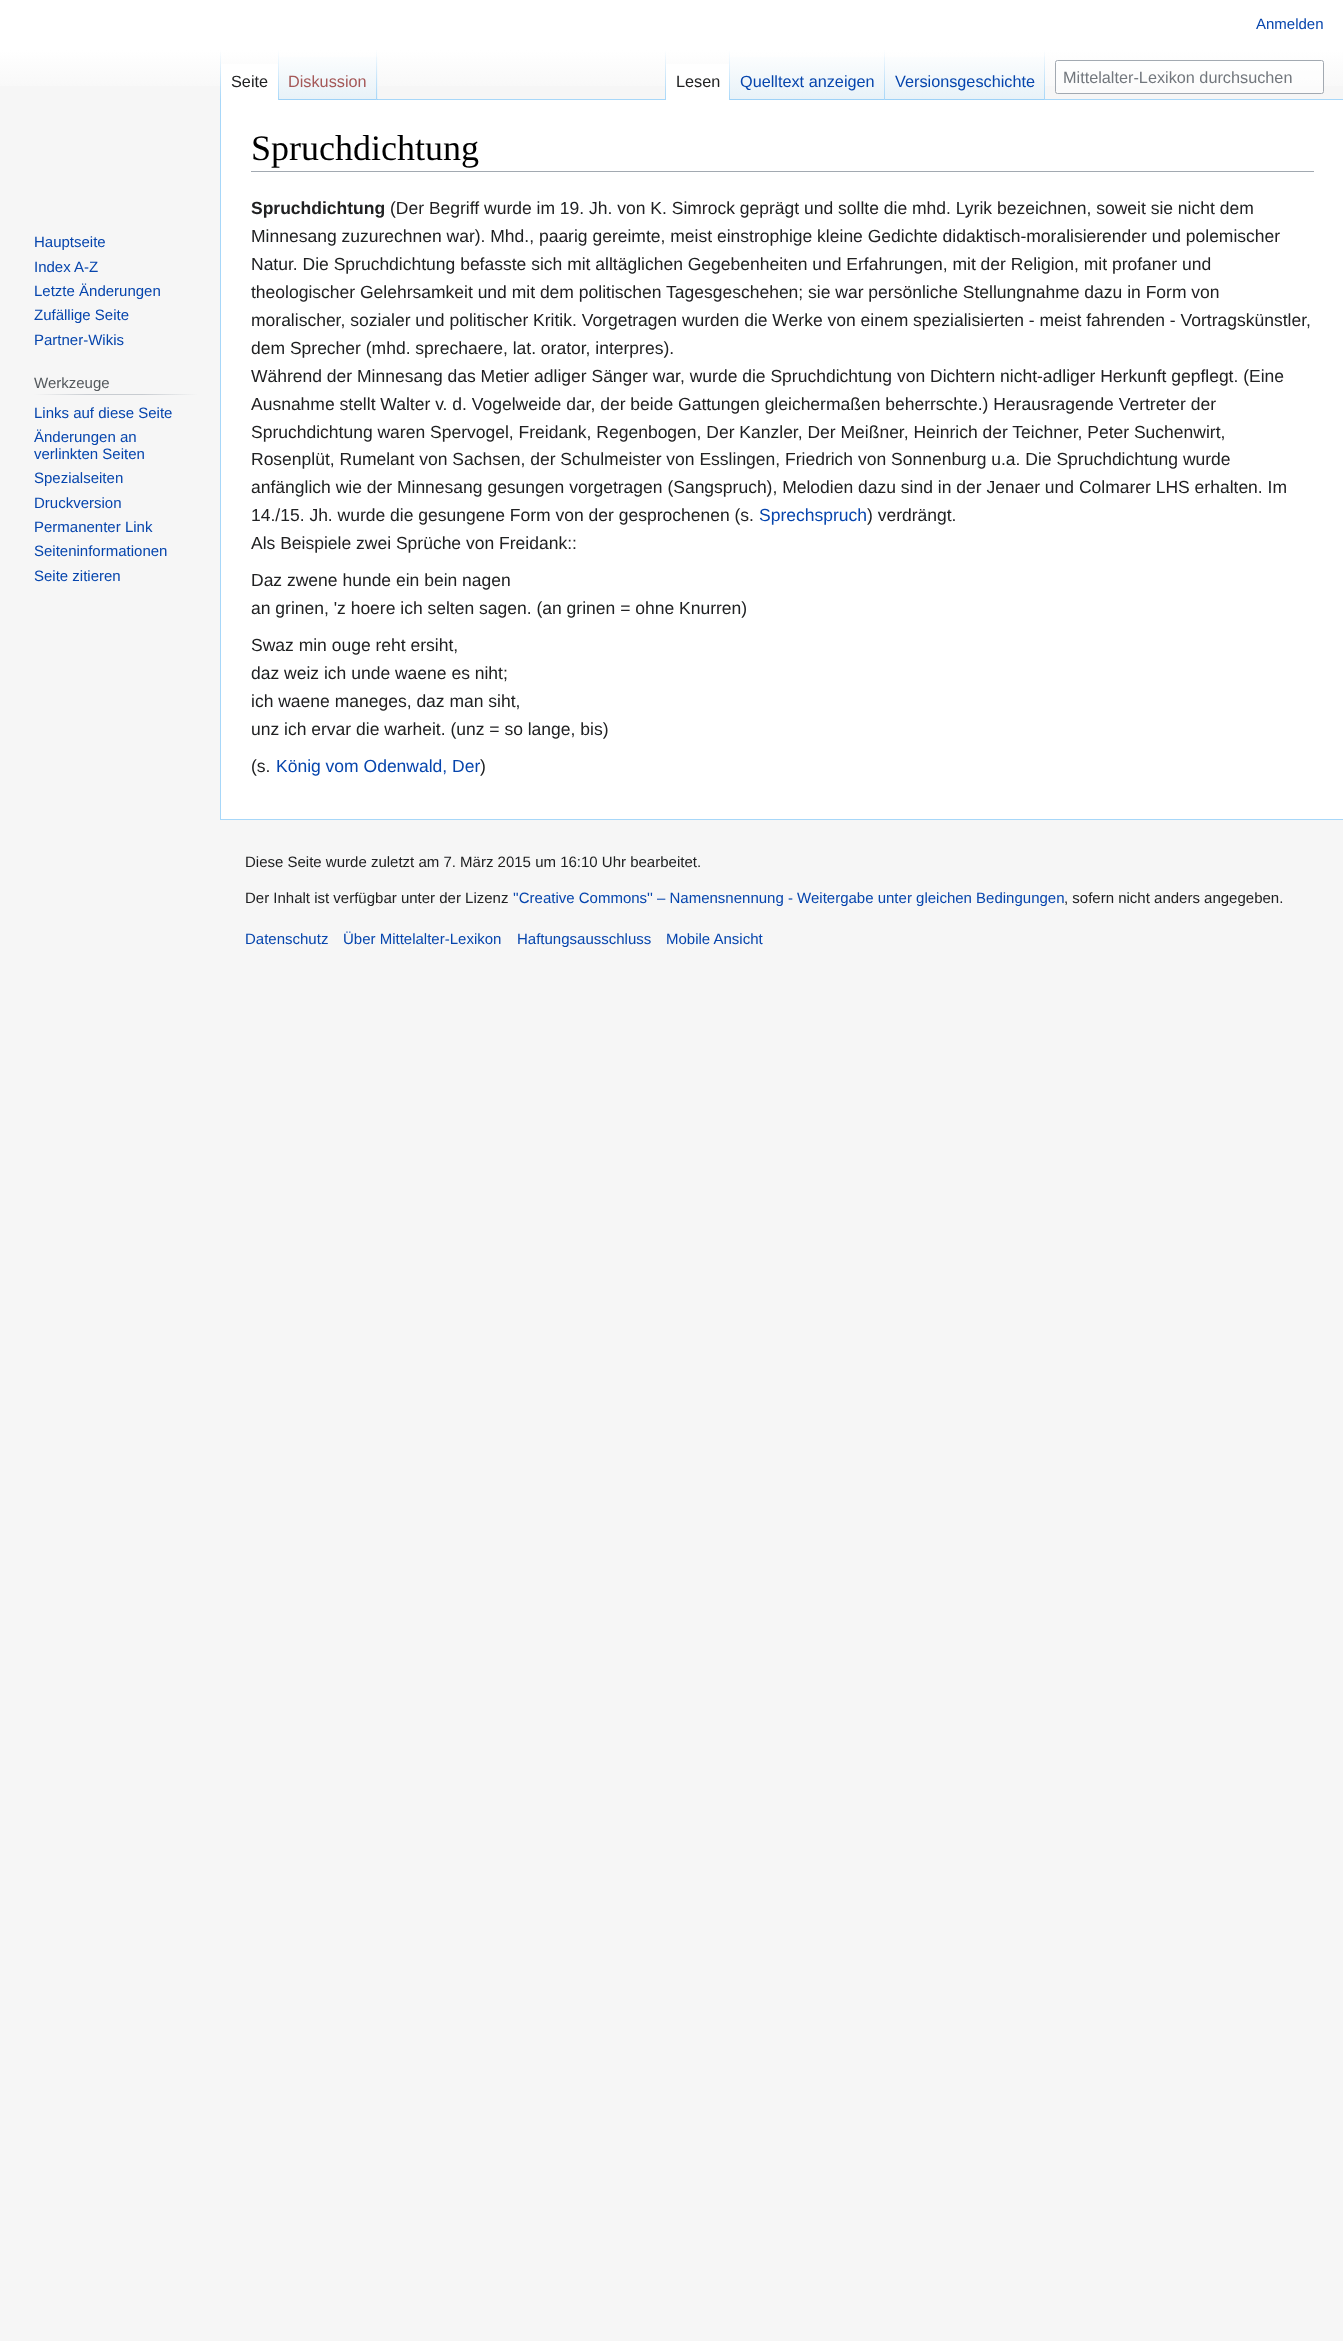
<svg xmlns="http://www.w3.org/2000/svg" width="1343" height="2341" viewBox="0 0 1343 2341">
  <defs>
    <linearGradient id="g1" gradientUnits="userSpaceOnUse" x1="672" y1="0" x2="672" y2="100"><stop offset="0.5" stop-color="#fff"/><stop offset="1" stop-color="#f6f6f6"/></linearGradient>
    <linearGradient id="g2" gradientUnits="userSpaceOnUse" x1="221" y1="50" x2="221" y2="100"><stop offset="0" stop-color="#a7d7f9" stop-opacity="0"/><stop offset="1" stop-color="#a7d7f9"/></linearGradient>
    <linearGradient id="g3" gradientUnits="userSpaceOnUse" x1="278" y1="50" x2="278" y2="100"><stop offset="0" stop-color="#fff"/><stop offset="1" stop-color="#a7d7f9"/></linearGradient>
    <linearGradient id="g4" gradientUnits="userSpaceOnUse" x1="328" y1="100" x2="328" y2="50"><stop offset="0" stop-color="#77c1f6"/><stop offset="0.03" stop-color="#e8f2f8"/><stop offset="1" stop-color="#fff"/></linearGradient>
    <linearGradient id="g5" gradientUnits="userSpaceOnUse" x1="377" y1="50" x2="377" y2="100"><stop offset="0" stop-color="#a7d7f9" stop-opacity="0"/><stop offset="1" stop-color="#a7d7f9"/></linearGradient>
    <linearGradient id="g6" gradientUnits="userSpaceOnUse" x1="666" y1="50" x2="666" y2="100"><stop offset="0" stop-color="#a7d7f9" stop-opacity="0"/><stop offset="1" stop-color="#a7d7f9"/></linearGradient>
    <linearGradient id="g7" gradientUnits="userSpaceOnUse" x1="729" y1="50" x2="729" y2="100"><stop offset="0" stop-color="#fff"/><stop offset="1" stop-color="#a7d7f9"/></linearGradient>
    <linearGradient id="g8" gradientUnits="userSpaceOnUse" x1="808" y1="100" x2="808" y2="50"><stop offset="0" stop-color="#77c1f6"/><stop offset="0.03" stop-color="#e8f2f8"/><stop offset="1" stop-color="#fff"/></linearGradient>
    <linearGradient id="g9" gradientUnits="userSpaceOnUse" x1="884" y1="50" x2="884" y2="100"><stop offset="0" stop-color="#a7d7f9" stop-opacity="0"/><stop offset="1" stop-color="#a7d7f9"/></linearGradient>
    <linearGradient id="g10" gradientUnits="userSpaceOnUse" x1="965" y1="100" x2="965" y2="50"><stop offset="0" stop-color="#77c1f6"/><stop offset="0.03" stop-color="#e8f2f8"/><stop offset="1" stop-color="#fff"/></linearGradient>
    <linearGradient id="g11" gradientUnits="userSpaceOnUse" x1="1044" y1="50" x2="1044" y2="100"><stop offset="0" stop-color="#a7d7f9" stop-opacity="0"/><stop offset="1" stop-color="#a7d7f9"/></linearGradient>
    <linearGradient id="g12" gradientUnits="userSpaceOnUse" x1="34" y1="394" x2="198" y2="394"><stop offset="0" stop-color="#f6f6f6"/><stop offset="0.33" stop-color="#c8ccd1"/><stop offset="0.66" stop-color="#c8ccd1"/><stop offset="1" stop-color="#f6f6f6"/></linearGradient>
  </defs>
  <rect width="100%" height="100%" fill="#f6f6f6"/>
  <path d="M0 0h1343v86H0z" fill="url(#g1)"/>
  <path d="M220 819h1123v1H220z" fill="#a7d7f9"/>
  <path d="M220 99h1v721H220z" fill="#a7d7f9"/>
  <path d="M220 50h1v50H220z" fill="url(#g2)"/>
  <path d="M221 64h57v36H221z" fill="#fff"/>
  <path d="M278 50h1v50H278z" fill="url(#g3)"/>
  <path d="M279 57h99v43H279z" fill="url(#g4)"/>
  <path d="M376 50h1v50H376z" fill="url(#g5)"/>
  <path d="M378 99h965v1H378z" fill="#a7d7f9"/>
  <path d="M665 50h1v50H665z" fill="url(#g6)"/>
  <path d="M666 64h63v36H666z" fill="#fff"/>
  <path d="M729 50h1v50H729z" fill="url(#g7)"/>
  <path d="M730 57h155v43H730z" fill="url(#g8)"/>
  <path d="M884 50h1v50H884z" fill="url(#g9)"/>
  <path d="M885 57h160v43H885z" fill="url(#g10)"/>
  <path d="M1044 50h1v50H1044z" fill="url(#g11)"/>
  <rect x="1055.5" y="60.5" width="268" height="33" rx="2" fill="#ffffff80" stroke="#a2a9b1"/>
  <path d="M34 394h164v1H34z" fill="url(#g12)"/>
  <path d="M221 100h1122v719H221z" fill="#fff"/>
  <path d="M251 171h1063v1H251z" fill="#a2a9b1"/>
  <text x="1256" y="29" font-family="Liberation Sans" font-size="15" fill="#0645ad">Anmelden</text>
  <text x="231" y="87" font-family="Liberation Sans" font-size="16.25" fill="#202122">Seite</text>
  <text x="288" y="87" font-family="Liberation Sans" font-size="16.25" fill="#a55858">Diskussion</text>
  <text x="676" y="87" font-family="Liberation Sans" font-size="16.25" fill="#202122">Lesen</text>
  <g font-family="Liberation Sans" font-size="16.25" fill="#0645ad">
    <text x="740" y="87">Quelltext anzeigen</text>
    <text x="895" y="87">Versionsgeschichte</text>
  </g>
  <text x="1063" y="83" font-family="Liberation Sans" font-size="16.25" fill="#72777d">Mittelalter-Lexikon durchsuchen</text>
  <g font-family="Liberation Sans" font-size="15" fill="#0645ad">
    <text x="34" y="247">Hauptseite</text>
    <text x="34" y="272">Index A-Z</text>
    <text x="34" y="296">Letzte Änderungen</text>
    <text x="34" y="320">Zufällige Seite</text>
    <text x="34" y="345">Partner-Wikis</text>
  </g>
  <text x="34" y="388" font-family="Liberation Sans" font-size="15" fill="#54595d">Werkzeuge</text>
  <g font-family="Liberation Sans" font-size="15" fill="#0645ad">
    <text x="34" y="418">Links auf diese Seite</text>
    <text x="34" y="442">Änderungen an</text>
    <text x="34" y="459">verlinkten Seiten</text>
    <text x="34" y="483">Spezialseiten</text>
    <text x="34" y="508">Druckversion</text>
    <text x="34" y="532">Permanenter Link</text>
    <text x="34" y="556">Seiteninformationen</text>
    <text x="34" y="581">Seite zitieren</text>
  </g>
  <text x="251" y="160" font-family="Liberation Serif" font-size="36" fill="#000">Spruchdichtung</text>
  <text x="251" y="214" font-family="Liberation Sans" font-size="17.5" font-weight="bold" fill="#202122">Spruchdichtung</text>
  <g font-family="Liberation Sans" font-size="17.5" fill="#202122">
    <text x="390" y="214">(Der Begriff wurde im 19. Jh. von K. Simrock geprägt und sollte die mhd. Lyrik bezeichnen, soweit sie nicht dem</text>
    <text x="251" y="242">Minnesang zuzurechnen war). Mhd., paarig gereimte, meist einstrophige kleine Gedichte didaktisch-moralisierender und polemischer</text>
    <text x="251" y="270">Natur. Die Spruchdichtung befasste sich mit alltäglichen Gegebenheiten und Erfahrungen, mit der Religion, mit profaner und</text>
    <text x="251" y="298">theologischer Gelehrsamkeit und mit dem politischen Tagesgeschehen; sie war persönliche Stellungnahme dazu in Form von</text>
    <text x="251" y="326">moralischer, sozialer und politischer Kritik. Vorgetragen wurden die Werke von einem spezialisierten - meist fahrenden - Vortragskünstler,</text>
    <text x="251" y="354">dem Sprecher (mhd. sprechaere, lat. orator, interpres).</text>
    <text x="251" y="382">Während der Minnesang das Metier adliger Sänger war, wurde die Spruchdichtung von Dichtern nicht-adliger Herkunft gepflegt. (Eine</text>
    <text x="251" y="410">Ausnahme stellt Walter v. d. Vogelweide dar, der beide Gattungen gleichermaßen beherrschte.) Herausragende Vertreter der</text>
    <text x="251" y="438">Spruchdichtung waren Spervogel, Freidank, Regenbogen, Der Kanzler, Der Meißner, Heinrich der Teichner, Peter Suchenwirt,</text>
    <text x="251" y="465">Rosenplüt, Rumelant von Sachsen, der Schulmeister von Esslingen, Friedrich von Sonnenburg u.a. Die Spruchdichtung wurde</text>
    <text x="251" y="493">anfänglich wie der Minnesang gesungen vorgetragen (Sangspruch), Melodien dazu sind in der Jenaer und Colmarer LHS erhalten. Im</text>
    <text x="251" y="521">14./15. Jh. wurde die gesungene Form von der gesprochenen (s.</text>
  </g>
  <text x="759" y="521" font-family="Liberation Sans" font-size="17.5" fill="#0645ad">Sprechspruch</text>
  <g font-family="Liberation Sans" font-size="17.5" fill="#202122">
    <text x="867" y="521">) verdrängt.</text>
    <text x="251" y="549">Als Beispiele zwei Sprüche von Freidank::</text>
    <text x="251" y="586">Daz zwene hunde ein bein nagen</text>
    <text x="251" y="614">an grinen, 'z hoere ich selten sagen. (an grinen = ohne Knurren)</text>
    <text x="251" y="651">Swaz min ouge reht ersiht,</text>
    <text x="251" y="679">daz weiz ich unde waene es niht;</text>
    <text x="251" y="707">ich waene maneges, daz man siht,</text>
    <text x="251" y="735">unz ich ervar die warheit. (unz = so lange, bis)</text>
    <text x="251" y="772">(s.</text>
  </g>
  <text x="276" y="772" font-family="Liberation Sans" font-size="17.5" fill="#0645ad">König vom Odenwald, Der</text>
  <text x="480" y="772" font-family="Liberation Sans" font-size="17.5" fill="#202122">)</text>
  <g font-family="Liberation Sans" font-size="15" fill="#202122">
    <text x="245" y="867">Diese Seite wurde zuletzt am 7. März 2015 um 16:10 Uhr bearbeitet.</text>
    <text x="245" y="903">Der Inhalt ist verfügbar unter der Lizenz</text>
  </g>
  <text x="513" y="903" font-family="Liberation Sans" font-size="15" fill="#0645ad">''Creative Commons'' – Namensnennung - Weitergabe unter gleichen Bedingungen</text>
  <text x="1064" y="903" font-family="Liberation Sans" font-size="15" fill="#202122">, sofern nicht anders angegeben.</text>
  <g font-family="Liberation Sans" font-size="15" fill="#0645ad">
    <text x="245" y="944">Datenschutz</text>
    <text x="343" y="944">Über Mittelalter-Lexikon</text>
    <text x="517" y="944">Haftungsausschluss</text>
    <text x="666" y="944">Mobile Ansicht</text>
  </g>
</svg>
